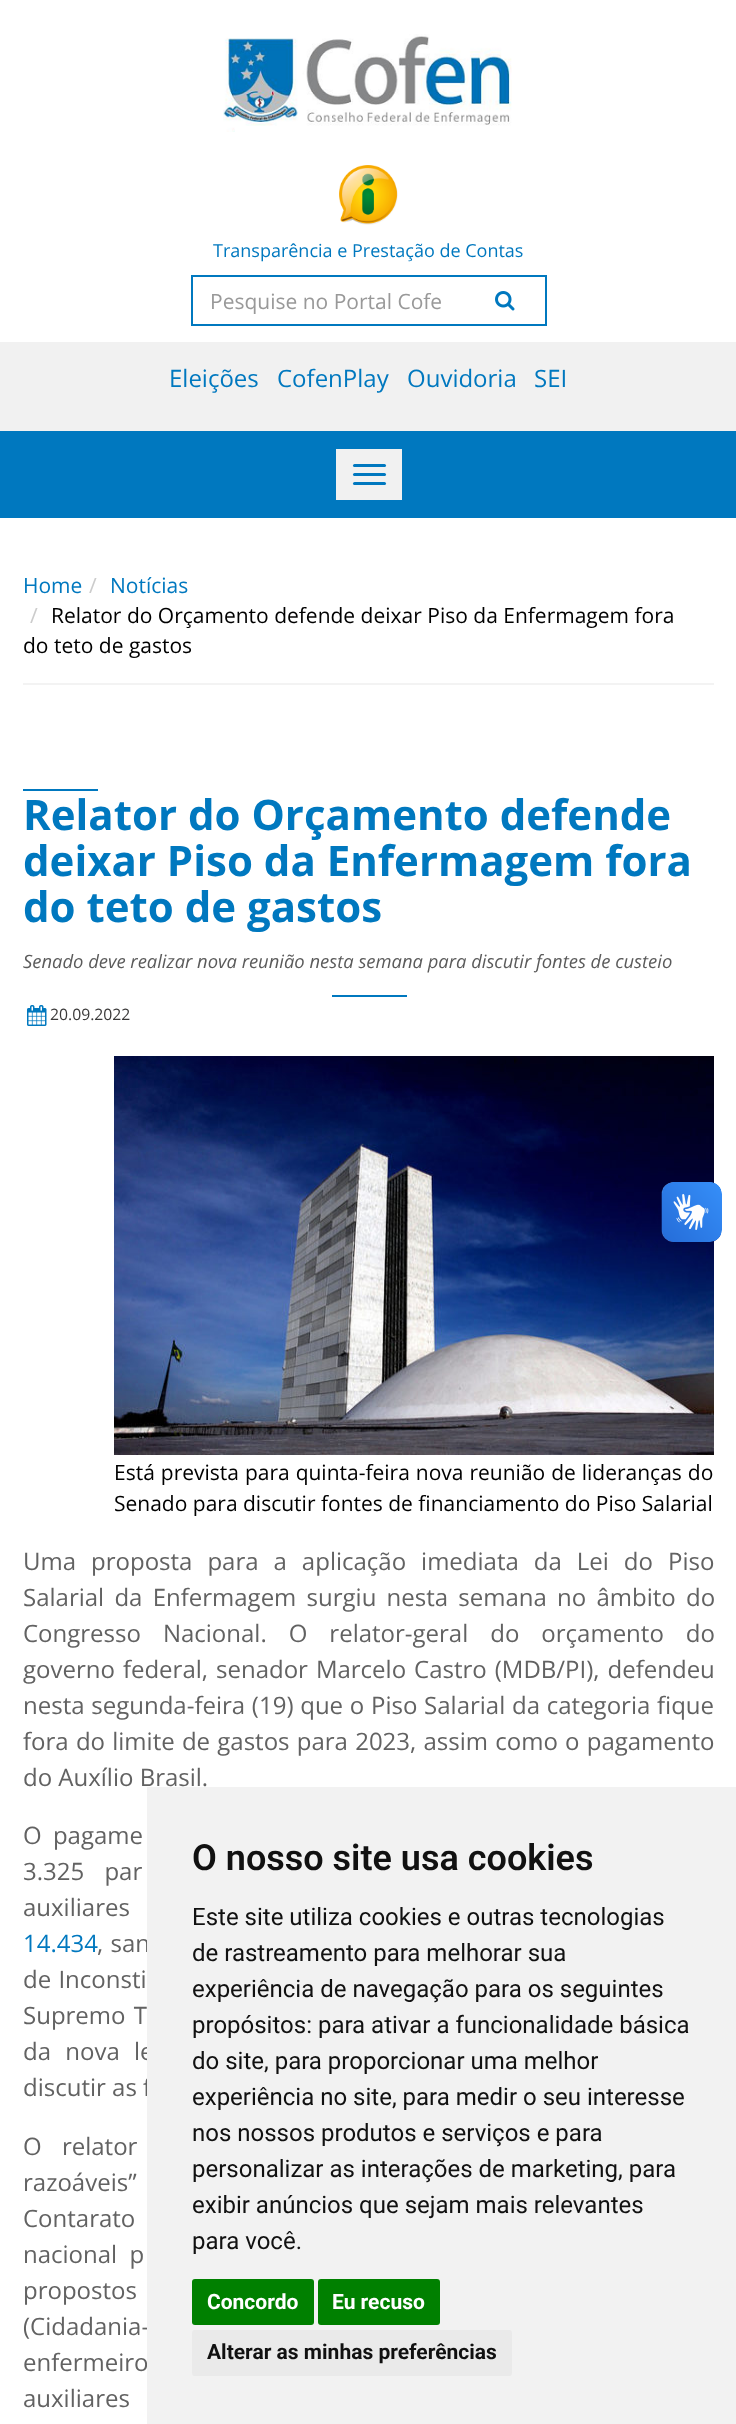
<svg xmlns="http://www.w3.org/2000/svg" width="736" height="2424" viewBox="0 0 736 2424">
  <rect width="100%" height="100%" fill="#fff"/>
  <image x="223" y="34" width="289" height="98" href="img/1.png"/>
  <image x="339" y="165" width="59" height="60" href="img/2.png"/>
  <path d="M191 275h355v2H191z" fill="#0078bf"/>
  <path d="M545 275h2v51H545z" fill="#0078bf"/>
  <path d="M191 324h355v2H191z" fill="#0078bf"/>
  <image x="495" y="291" width="20" height="20" href="img/3.png"/>
  <path d="M191 275h2v51H191z" fill="#0078bf"/>
  <path d="M0 342h736v89H0z" fill="#f1f1f1"/>
  <path d="M0 431h736v87H0z" fill="#0078bf"/>
  <path d="M336 449h66v51H336z" fill="#f1f1f1"/>
  <rect x="353" y="464" width="33" height="3" rx="1.5" fill="#0078bf"/>
  <rect x="353" y="473" width="33" height="3" rx="1.5" fill="#0078bf"/>
  <rect x="353" y="482" width="33" height="3" rx="1.5" fill="#0078bf"/>
  <path d="M23 683h691v2H23z" fill="#f3f3f3"/>
  <path d="M23 789h75v2H23z" fill="#0078bf"/>
  <path d="M332 995h75v2H332z" fill="#0078bf"/>
  <image x="27" y="1005" width="20" height="21" href="img/4.png"/>
  <image x="114" y="1056" width="600" height="399" href="img/5.png"/>
  <image x="661" y="1182" width="61" height="60" href="img/6.png"/>
  <image x="662" y="1182" width="60" height="60" href="img/7.png"/>
  <text x="213" y="257" font-family="Open Sans" font-size="18" fill="#0078bf">Transparência e Prestação de Contas</text>
  <text x="210" y="309" font-family="Open Sans" font-size="21" fill="#999">Pesquise no Portal Cofe</text>
  <g font-family="Open Sans" font-size="24" fill="#0078bf">
    <text x="169" y="387">Eleições</text>
    <text x="277" y="387">CofenPlay</text>
    <text x="407" y="387">Ouvidoria</text>
    <text x="534" y="387">SEI</text>
  </g>
  <text x="23" y="593" font-family="Open Sans" font-size="21" fill="#0078bf">Home</text>
  <text x="89" y="593" font-family="Open Sans" font-size="21" fill="#ccc">/</text>
  <text x="110" y="593" font-family="Open Sans" font-size="21" fill="#0078bf">Notícias</text>
  <text x="30" y="623" font-family="Open Sans" font-size="21" fill="#ccc">/</text>
  <g font-family="Open Sans" font-size="21" fill="#000">
    <text x="51" y="623">Relator do Orçamento defende deixar Piso da Enfermagem fora</text>
    <text x="23" y="653">do teto de gastos</text>
  </g>
  <g font-family="Open Sans" font-size="42" font-weight="bold" fill="#0078bf">
    <text x="23" y="830">Relator do Orçamento defende</text>
    <text x="23" y="876">deixar Piso da Enfermagem fora</text>
    <text x="23" y="922">do teto de gastos</text>
  </g>
  <text x="23" y="968" font-family="Open Sans" font-size="18.4" font-style="italic" fill="#5b5b5b">Senado deve realizar nova reunião nesta semana para discutir fontes de custeio</text>
  <text x="50" y="1020" font-family="Open Sans" font-size="15.75" fill="#3a3939">20.09.2022</text>
  <g font-family="Open Sans" font-size="21" fill="#000">
    <text x="114" y="1480" word-spacing="0.5">Está prevista para quinta-feira nova reunião de lideranças do</text>
    <text x="114" y="1511">Senado para discutir fontes de financiamento do Piso Salarial</text>
  </g>
  <g font-family="Open Sans" font-size="24" fill="#626262">
    <text x="23" y="1570" word-spacing="8.75">Uma proposta para a aplicação imediata da Lei do Piso</text>
    <text x="23" y="1606" word-spacing="4">Salarial da Enfermagem surgiu nesta semana no âmbito do</text>
    <text x="23" y="1642" word-spacing="15.75">Congresso Nacional. O relator-geral do orçamento do</text>
    <text x="23" y="1678" word-spacing="1.75">governo federal, senador Marcelo Castro (MDB/PI), defendeu</text>
    <text x="23" y="1714" word-spacing="0.5">nesta segunda-feira (19) que o Piso Salarial da categoria fique</text>
    <text x="23" y="1750" word-spacing="1">fora do limite de gastos para 2023, assim como o pagamento</text>
    <text x="23" y="1786">do Auxílio Brasil.</text>
    <text x="23" y="1844" word-spacing="5">O pagame</text>
    <text x="23" y="1880" word-spacing="14">3.325 par</text>
    <text x="23" y="1916" word-spacing="4">auxiliares</text>
  </g>
  <text x="23" y="1952" font-family="Open Sans" font-size="24" fill="#0078bf">14.434</text>
  <g font-family="Open Sans" font-size="24" fill="#626262">
    <text x="97" y="1952" word-spacing="1">, san</text>
    <text x="23" y="1988" word-spacing="1">de Inconsti</text>
    <text x="23" y="2024" word-spacing="2">Supremo T</text>
    <text x="23" y="2060" word-spacing="8">da nova le</text>
    <text x="23" y="2096">discutir as f</text>
    <text x="23" y="2155" word-spacing="14">O relator</text>
    <text x="23" y="2191" word-spacing="12">razoáveis”</text>
    <text x="23" y="2227" word-spacing="4">Contarato</text>
    <text x="23" y="2263" word-spacing="6">nacional p</text>
    <text x="23" y="2299">propostos</text>
    <text x="23" y="2335" word-spacing="14">(Cidadania-</text>
    <text x="23" y="2371" word-spacing="10">enfermeiro</text>
    <text x="23" y="2407" word-spacing="14">auxiliares</text>
  </g>
  <path d="M147 1787h589v637H147z" fill="#f2f2f2"/>
  <text x="192" y="1870" font-family="Roboto" font-size="36" font-weight="600" fill="#111">O nosso site usa cookies</text>
  <g font-family="Roboto" font-size="24" fill="#111">
    <text x="192" y="1925">Este site utiliza cookies e outras tecnologias</text>
    <text x="192" y="1961">de rastreamento para melhorar sua</text>
    <text x="192" y="1997">experiência de navegação para os seguintes</text>
    <text x="192" y="2033">propósitos: para ativar a funcionalidade básica</text>
    <text x="192" y="2069">do site, para proporcionar uma melhor</text>
    <text x="192" y="2105">experiência no site, para medir o seu interesse</text>
    <text x="192" y="2141">nos nossos produtos e serviços e para</text>
    <text x="192" y="2177">personalizar as interações de marketing, para</text>
    <text x="192" y="2213">exibir anúncios que sejam mais relevantes</text>
    <text x="192" y="2249">para você.</text>
  </g>
  <rect x="192" y="2279" width="122" height="46" rx="3" fill="#008000"/>
  <text x="207" y="2309" font-family="Roboto" font-size="21" font-weight="bold" fill="#fff">Concordo</text>
  <rect x="318" y="2279" width="122" height="46" rx="3" fill="#008000"/>
  <text x="332" y="2309" font-family="Roboto" font-size="21" font-weight="bold" fill="#fff">Eu recuso</text>
  <rect x="192" y="2330" width="320" height="46" rx="3" fill="#eaeaea"/>
  <text x="207" y="2359" font-family="Roboto" font-size="21" font-weight="bold" fill="#111">Alterar as minhas preferências</text>
</svg>
